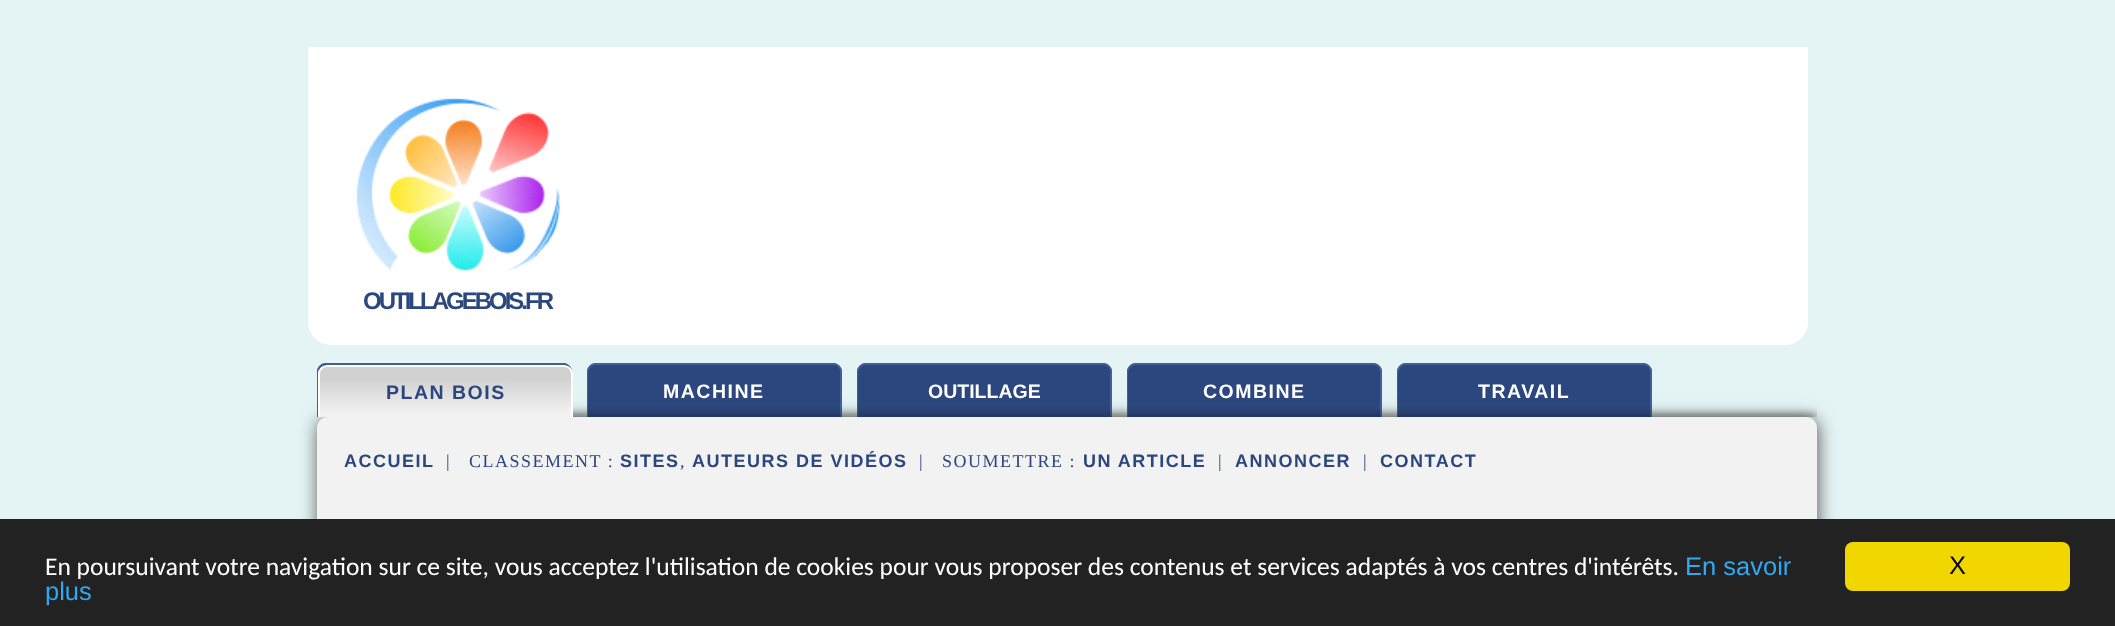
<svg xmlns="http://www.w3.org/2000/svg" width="2115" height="626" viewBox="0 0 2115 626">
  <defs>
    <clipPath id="clip1"><path d="M317 363h1500v54H317z"/></clipPath>
    <clipPath id="clip2"><path d="M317 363h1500v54H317z"/></clipPath>
    <clipPath id="clip3"><rect x="318" y="365" width="255" height="63" rx="9"/></clipPath>
    <linearGradient id="g1" gradientUnits="userSpaceOnUse" x1="320" y1="426" x2="320" y2="366"><stop offset="0.2" stop-color="#f2f2f2"/><stop offset="0.8" stop-color="#d1d1d1"/></linearGradient>
  </defs>
  <rect width="100%" height="100%" fill="#e4f4f4"/>
  <path d="M308 47H1808V322C1808 334.5 1797.5 345 1785 345H331C318.5 345 308 334.5 308 322Z" fill="#fff"/>
  <image x="356" y="97" width="204" height="175" href="img/1.png"/>
  <rect x="318" y="419" width="1500" height="127" rx="11" fill="#555" filter="blur(9px)"/>
  <path d="M596 363H833C838 363 842 367 842 372V417H587V372C587 367 591 363 596 363Z" fill="#2b477d"/>
  <rect x="317" y="417" width="1500" height="128" rx="11" fill="#f2f2f2"/>
  <g clip-path="url(#clip1)">
    <rect x="588" y="364" width="253" height="61" rx="8" fill="none" stroke="#415f9d" stroke-width="2"/>
    <rect x="588" y="365" width="252" height="60" rx="9" fill="#2b477d"/>
  </g>
  <path d="M866 363H1103C1108 363 1112 367 1112 372V417H857V372C857 367 861 363 866 363Z" fill="#2b477d"/>
  <g clip-path="url(#clip1)">
    <rect x="858" y="364" width="253" height="61" rx="8" fill="none" stroke="#415f9d" stroke-width="2"/>
    <rect x="858" y="365" width="252" height="60" rx="9" fill="#2b477d"/>
  </g>
  <path d="M1136 363H1373C1378 363 1382 367 1382 372V417H1127V372C1127 367 1131 363 1136 363Z" fill="#2b477d"/>
  <g clip-path="url(#clip1)">
    <rect x="1128" y="364" width="253" height="61" rx="8" fill="none" stroke="#415f9d" stroke-width="2"/>
    <rect x="1128" y="365" width="252" height="60" rx="9" fill="#2b477d"/>
  </g>
  <path d="M1406 363H1643C1648 363 1652 367 1652 372V417H1397V372C1397 367 1401 363 1406 363Z" fill="#2b477d"/>
  <g clip-path="url(#clip1)">
    <rect x="1398" y="364" width="253" height="61" rx="8" fill="none" stroke="#415f9d" stroke-width="2"/>
    <rect x="1398" y="365" width="252" height="60" rx="9" fill="#2b477d"/>
  </g>
  <g clip-path="url(#clip2)">
    <rect x="317" y="416" width="1500" height="3" rx="1.5" fill="#111" filter="blur(4.5px)"/>
  </g>
  <path d="M326 363H563C568 363 572 367 572 372V417H317V372C317 367 321 363 326 363Z" fill="#2b477d"/>
  <g clip-path="url(#clip1)">
    <rect x="318" y="364" width="253" height="64" rx="8" fill="none" stroke="#415f9d" stroke-width="2"/>
  </g>
  <g clip-path="url(#clip3)">
    <path d="M318 366h255v51H318z" fill="url(#g1)"/>
  </g>
  <g clip-path="url(#clip1)">
    <rect x="319" y="366" width="253" height="61" rx="8" fill="none" stroke="#fff" stroke-width="2"/>
  </g>
  <path d="M0 519h2115v107H0z" fill="#222"/>
  <rect x="1845" y="542" width="225" height="49" rx="8" fill="#f1d600"/>
  <text x="363" y="309" font-family="Liberation Sans" font-size="24" font-weight="bold" letter-spacing="-3" fill="#2b477d">OUTILLAGEBOIS.FR</text>
  <text x="386" y="399" font-family="Liberation Sans" font-size="19.5" font-weight="bold" letter-spacing="1.5" fill="#2b477d">PLAN BOIS</text>
  <text x="663" y="398" font-family="Liberation Sans" font-size="19.5" font-weight="bold" letter-spacing="1.5" fill="#fff">MACHINE</text>
  <text x="928" y="398" font-family="Liberation Sans" font-size="19.5" font-weight="bold" fill="#fff">OUTILLAGE</text>
  <g font-family="Liberation Sans" font-size="19.5" font-weight="bold" letter-spacing="1.5" fill="#fff">
    <text x="1203" y="398">COMBINE</text>
    <text x="1478" y="398">TRAVAIL</text>
  </g>
  <text x="344" y="467" font-family="Liberation Sans" font-size="18" font-weight="bold" letter-spacing="1.5" fill="#2b477d">ACCUEIL</text>
  <g font-family="Liberation Serif" font-size="18" letter-spacing="1.5" fill="#2b477d">
    <text x="446" y="467">|</text>
    <text x="469" y="467">CLASSEMENT :</text>
  </g>
  <text x="620" y="467" font-family="Liberation Sans" font-size="18" font-weight="bold" letter-spacing="1.5" fill="#2b477d">SITES</text>
  <text x="680" y="467" font-family="Liberation Serif" font-size="18" letter-spacing="1.5" fill="#2b477d">,</text>
  <text x="692" y="467" font-family="Liberation Sans" font-size="18" font-weight="bold" letter-spacing="1.5" fill="#2b477d">AUTEURS DE VIDÉOS</text>
  <g font-family="Liberation Serif" font-size="18" letter-spacing="1.5" fill="#2b477d">
    <text x="919" y="467">|</text>
    <text x="942" y="467">SOUMETTRE :</text>
  </g>
  <text x="1083" y="467" font-family="Liberation Sans" font-size="18" font-weight="bold" letter-spacing="1.5" fill="#2b477d">UN ARTICLE</text>
  <text x="1218" y="467" font-family="Liberation Serif" font-size="18" letter-spacing="1.5" fill="#2b477d">|</text>
  <text x="1235" y="467" font-family="Liberation Sans" font-size="18" font-weight="bold" letter-spacing="1.5" fill="#2b477d">ANNONCER</text>
  <text x="1363" y="467" font-family="Liberation Serif" font-size="18" letter-spacing="1.5" fill="#2b477d">|</text>
  <text x="1380" y="467" font-family="Liberation Sans" font-size="18" font-weight="bold" letter-spacing="1.5" fill="#2b477d">CONTACT</text>
  <text x="45" y="575" font-family="Carlito" font-size="25.5" fill="#fff">En poursuivant votre navigation sur ce site, vous acceptez l'utilisation de cookies pour vous proposer des contenus et services adaptés à vos centres d'intérêts.</text>
  <g font-family="Liberation Sans" font-size="25.5" fill="#31a8f0">
    <text x="1685" y="575">En savoir</text>
    <text x="45" y="600">plus</text>
  </g>
  <text x="1949" y="574" font-family="Liberation Sans" font-size="25.5" fill="#000">X</text>
</svg>
